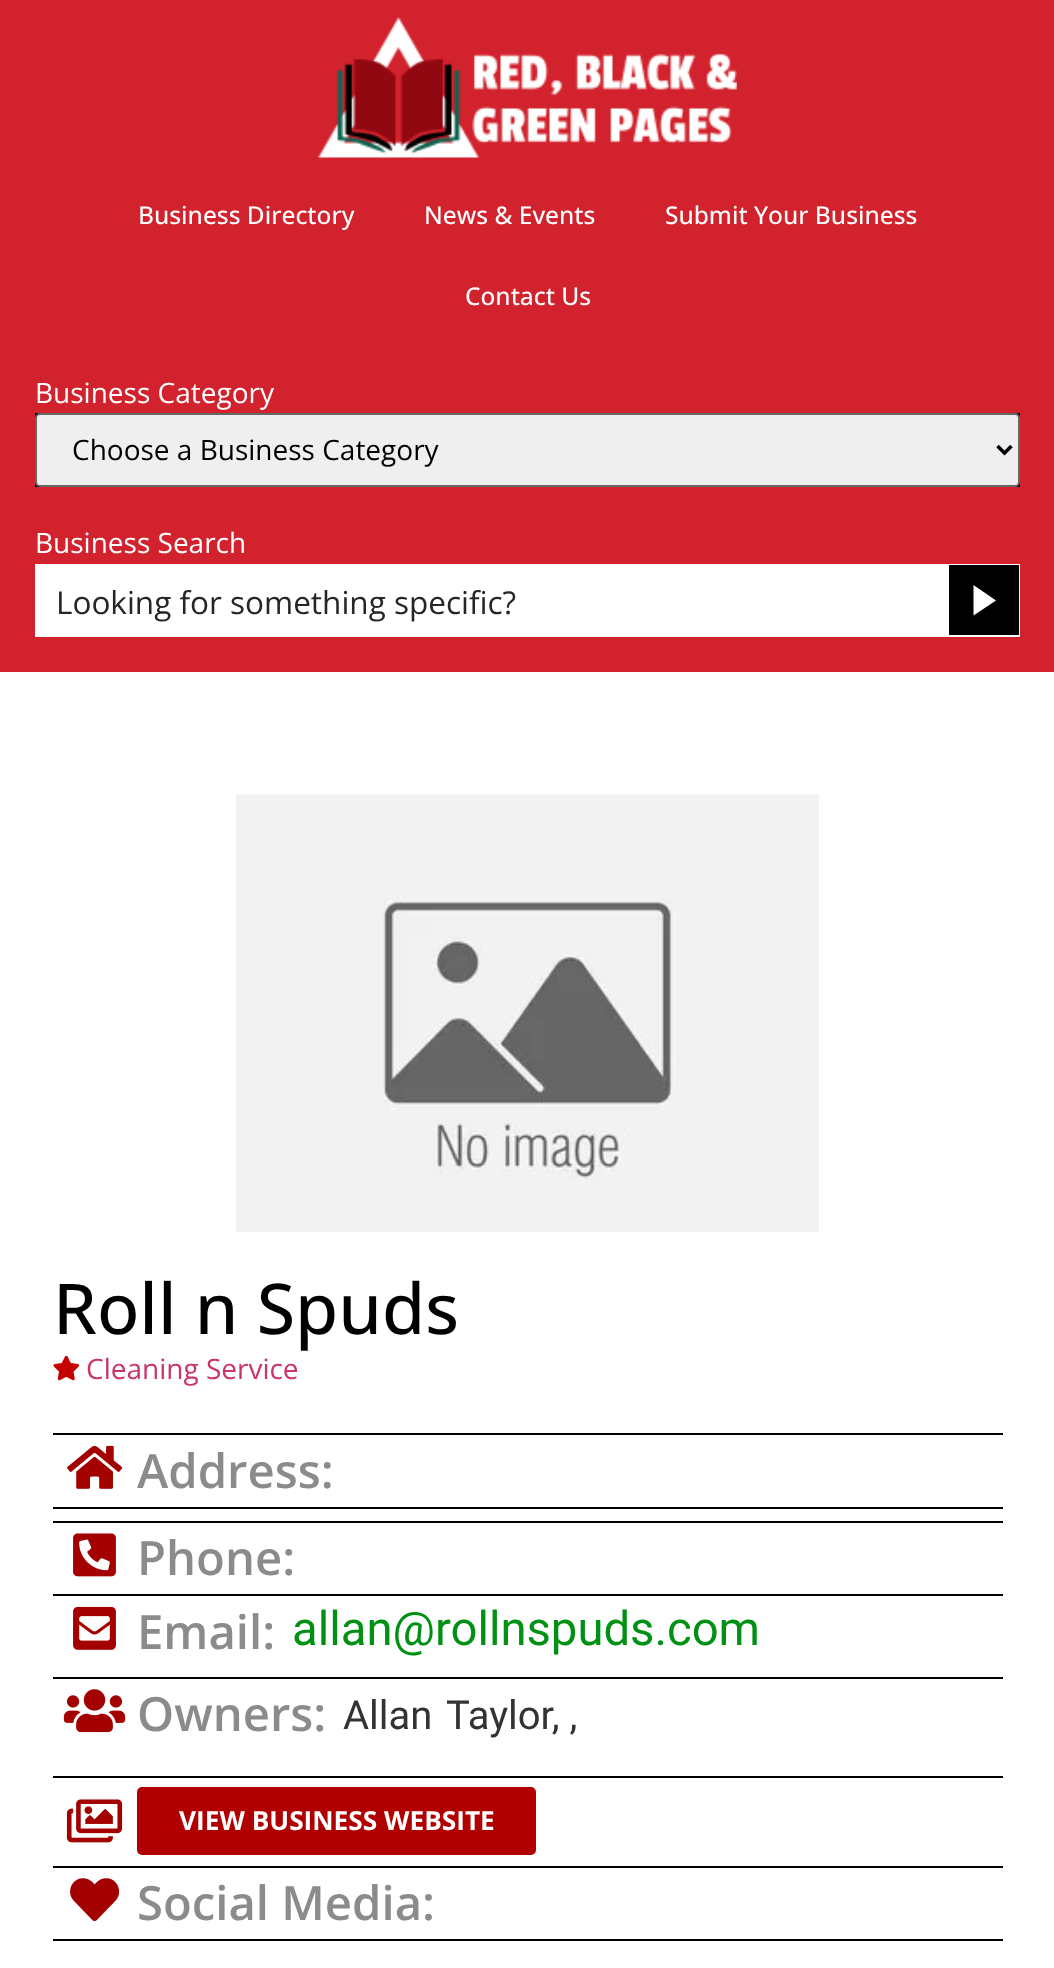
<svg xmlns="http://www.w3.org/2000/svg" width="1054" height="1968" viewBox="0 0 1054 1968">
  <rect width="100%" height="100%" fill="#fff"/>
  <path d="M0 0h1054v672H0z" fill="#d2222d"/>
  <image x="318" y="17" width="419" height="141" href="img/1.png"/>
  <path d="M35 413h985v74H35z" fill="#000"/>
  <rect x="36" y="414" width="983" height="72" rx="4" fill="#efefef" stroke="#666" stroke-width="2"/>
  <path d="M997.5 446L1004.5 453L1011.5 446" fill="none" stroke="#000" stroke-width="3.5"/>
  <path d="M35 564h985v73H35z" fill="#fff"/>
  <path d="M949 565h70v70H949z" fill="#000"/>
  <path d="M996 600.5L973.5 615.5V585Z" fill="#fff"/>
  <image x="236" y="794" width="583" height="438" href="img/2.png"/>
  <image x="53" y="1355" width="27" height="26" href="img/3.png"/>
  <path d="M53 1433h950v2H53z" fill="#000"/>
  <image x="67" y="1445" width="56" height="44" href="img/4.png"/>
  <path d="M53 1507h950v2H53z" fill="#000"/>
  <path d="M53 1521h950v2H53z" fill="#000"/>
  <image x="73" y="1533" width="43" height="44" href="img/5.png"/>
  <path d="M53 1594h950v2H53z" fill="#000"/>
  <image x="73" y="1606" width="43" height="44" href="img/6.png"/>
  <path d="M53 1677h950v2H53z" fill="#000"/>
  <image x="63" y="1689" width="63" height="44" href="img/7.png"/>
  <path d="M53 1776h950v2H53z" fill="#000"/>
  <image x="66" y="1799" width="57" height="44" href="img/8.png"/>
  <rect x="137" y="1787" width="399" height="68" rx="5" fill="#b10000"/>
  <path d="M53 1866h950v2H53z" fill="#000"/>
  <image x="70" y="1878" width="50" height="43" href="img/9.png"/>
  <path d="M53 1939h950v2H53z" fill="#000"/>
  <g font-family="Open Sans" font-size="24.5" font-weight="500" fill="#fff">
    <text x="138" y="224">Business Directory</text>
    <text x="424" y="224">News &amp; Events</text>
    <text x="665" y="224">Submit Your Business</text>
    <text x="465" y="305">Contact Us</text>
  </g>
  <text x="35" y="403" font-family="Open Sans" font-size="28" fill="#fff">Business Category</text>
  <text x="72" y="460" font-family="Open Sans" font-size="28" fill="#000">Choose a Business Category</text>
  <text x="35" y="553" font-family="Open Sans" font-size="28" fill="#fff">Business Search</text>
  <text x="56" y="614" font-family="Open Sans" font-size="31.5" fill="#262626">Looking for something specific?</text>
  <text x="53" y="1334" font-family="Open Sans" font-size="70" font-weight="500" fill="#000">Roll n Spuds</text>
  <text x="86" y="1379" font-family="Open Sans" font-size="28" fill="#c36">Cleaning Service</text>
  <g font-family="Open Sans" font-size="47.25" font-weight="600" fill="#8b8b8b">
    <text x="137" y="1488">Address:</text>
    <text x="137" y="1575">Phone:</text>
    <text x="137" y="1649">Email:</text>
  </g>
  <text x="292" y="1645" font-family="Roboto" font-size="47.25" fill="#009114">allan@rollnspuds.com</text>
  <text x="137" y="1731" font-family="Open Sans" font-size="47.25" font-weight="600" fill="#8b8b8b">Owners:</text>
  <g font-family="Roboto" font-size="40" fill="#333">
    <text x="343" y="1729">Allan</text>
    <text x="446" y="1729">Taylor, ,</text>
  </g>
  <text x="179" y="1830" font-family="Open Sans" font-size="26.25" font-weight="bold" fill="#fff">VIEW BUSINESS WEBSITE</text>
  <text x="137" y="1920" font-family="Open Sans" font-size="47.25" font-weight="600" fill="#8b8b8b">Social Media:</text>
</svg>
